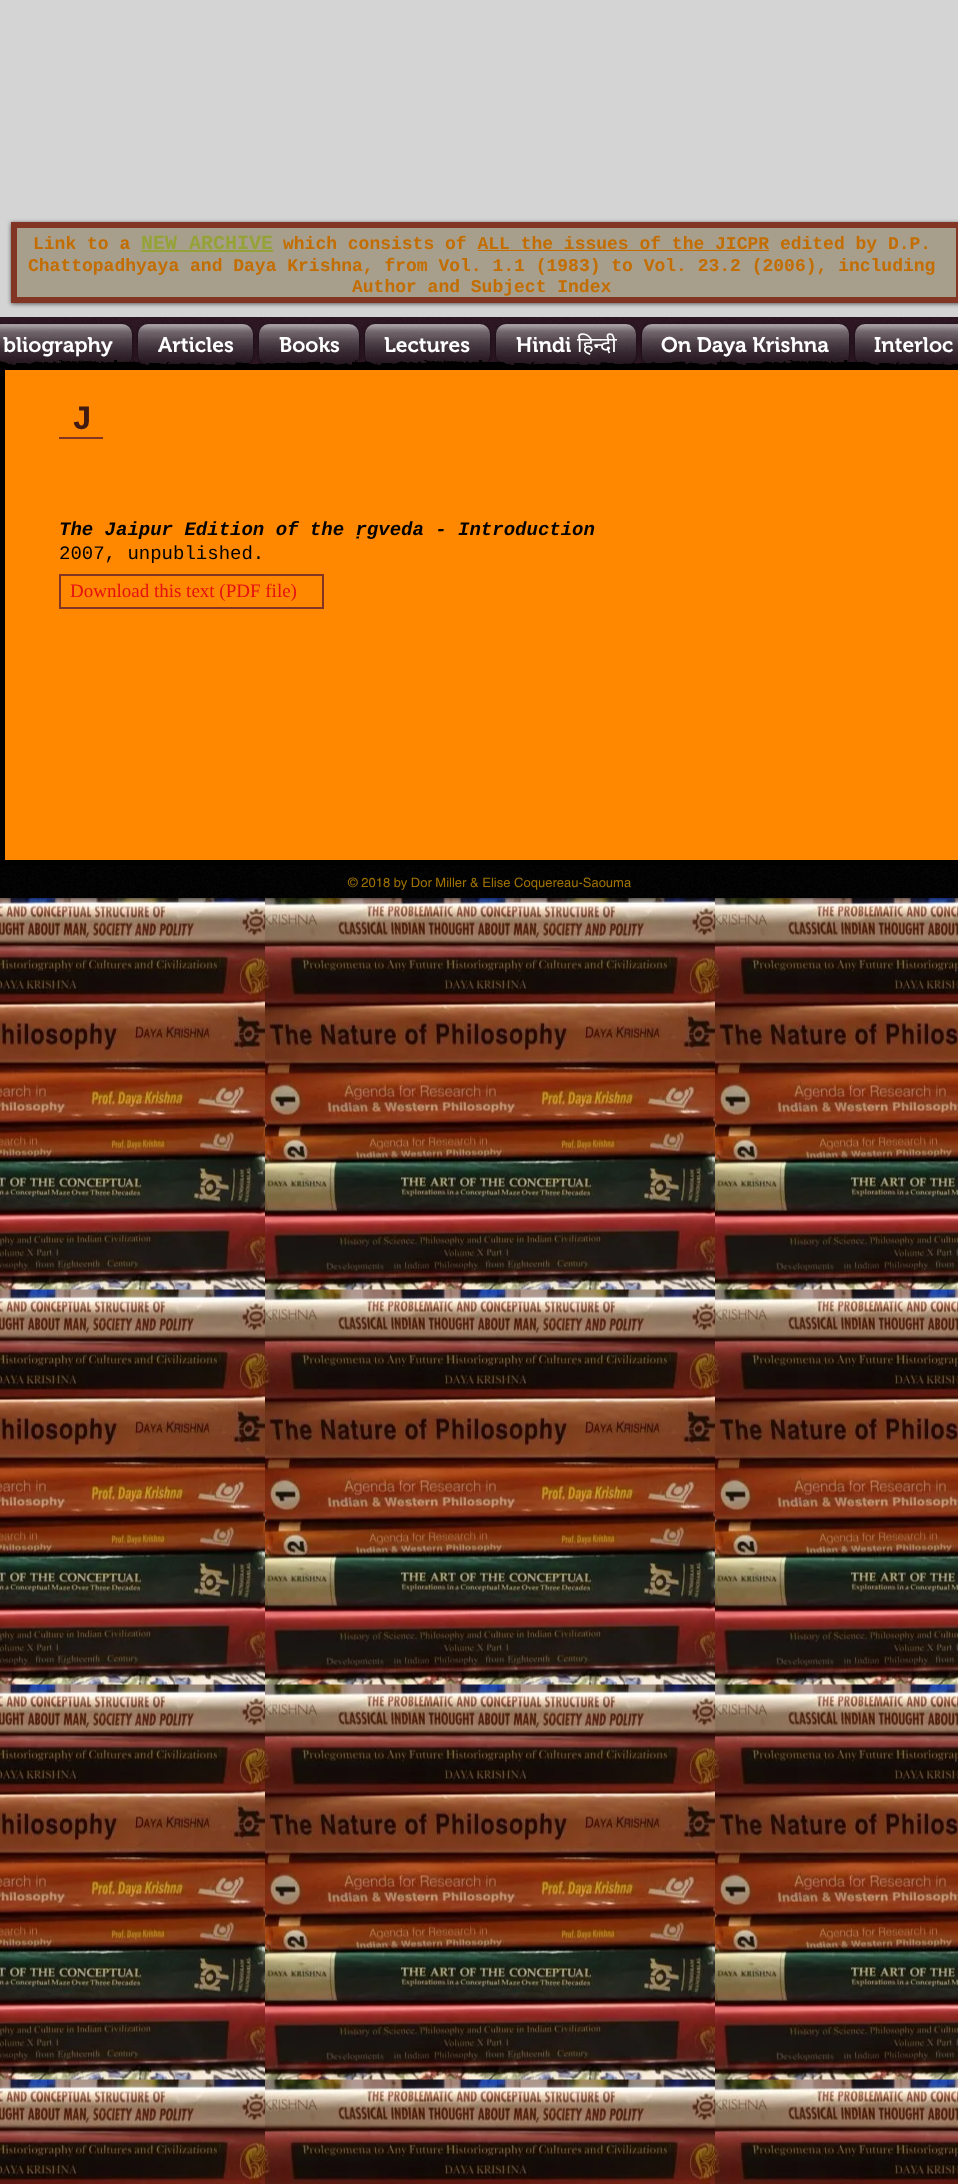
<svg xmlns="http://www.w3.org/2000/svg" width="958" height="2184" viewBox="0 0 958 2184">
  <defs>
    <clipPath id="clip1"><path d="M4 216H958V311H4ZM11 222H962V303H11Z" clip-rule="evenodd"/></clipPath>
    <clipPath id="clip2"><path d="M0 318H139V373H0ZM-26 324H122C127.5 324 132 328.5 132 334V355C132 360.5 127.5 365 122 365H-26C-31.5 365-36 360.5-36 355V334C-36 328.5-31.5 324-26 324Z" clip-rule="evenodd"/></clipPath>
    <clipPath id="clip3"><path d="M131 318H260V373H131ZM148 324H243C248.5 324 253 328.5 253 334V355C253 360.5 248.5 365 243 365H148C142.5 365 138 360.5 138 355V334C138 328.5 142.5 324 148 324Z" clip-rule="evenodd"/></clipPath>
    <clipPath id="clip4"><path d="M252 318H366V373H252ZM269 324H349C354.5 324 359 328.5 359 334V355C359 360.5 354.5 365 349 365H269C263.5 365 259 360.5 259 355V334C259 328.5 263.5 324 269 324Z" clip-rule="evenodd"/></clipPath>
    <clipPath id="clip5"><path d="M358 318H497V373H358ZM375 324H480C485.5 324 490 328.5 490 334V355C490 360.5 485.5 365 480 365H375C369.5 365 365 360.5 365 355V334C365 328.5 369.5 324 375 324Z" clip-rule="evenodd"/></clipPath>
    <clipPath id="clip6"><path d="M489 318H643V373H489ZM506 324H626C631.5 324 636 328.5 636 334V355C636 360.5 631.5 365 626 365H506C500.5 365 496 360.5 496 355V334C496 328.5 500.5 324 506 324Z" clip-rule="evenodd"/></clipPath>
    <clipPath id="clip7"><path d="M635 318H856V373H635ZM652 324H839C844.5 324 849 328.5 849 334V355C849 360.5 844.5 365 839 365H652C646.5 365 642 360.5 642 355V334C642 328.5 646.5 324 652 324Z" clip-rule="evenodd"/></clipPath>
    <clipPath id="clip8"><path d="M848 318H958V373H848ZM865 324H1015C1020.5 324 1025 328.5 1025 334V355C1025 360.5 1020.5 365 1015 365H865C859.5 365 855 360.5 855 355V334C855 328.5 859.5 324 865 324Z" clip-rule="evenodd"/></clipPath>
  </defs>
  <rect width="100%" height="100%" fill="#fff"/>
  <path d="M0 0h958v317H0z" fill="#d5d4d4"/>
  <path d="M141 250h132v2H141z" fill="#bada55"/>
  <path d="M478 250h291v1H478z" fill="#f80"/>
  <g clip-path="url(#clip1)">
    <path d="M11 223h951v81H11z" fill="#00000099" filter="blur(2px)"/>
  </g>
  <path d="M0 317h958v48H0z" fill="#2d1622"/>
  <image x="0" y="317" width="958" height="48" href="img/15.png"/>
  <g clip-path="url(#clip2)">
    <rect x="-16" y="325" width="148" height="41" rx="10" fill="#00000099" filter="blur(2px)"/>
  </g>
  <rect x="-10" y="324" width="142" height="41" rx="10" fill="#00000036"/>
  <image x="0" y="324" width="132" height="41" href="img/1.png"/>
  <image x="0" y="338" width="132" height="27" href="img/2.png"/>
  <g clip-path="url(#clip3)">
    <rect x="138" y="325" width="115" height="41" rx="10" fill="#00000099" filter="blur(2px)"/>
  </g>
  <rect x="138" y="324" width="115" height="41" rx="10" fill="#00000036"/>
  <image x="138" y="324" width="115" height="41" href="img/3.png"/>
  <image x="138" y="338" width="115" height="27" href="img/4.png"/>
  <g clip-path="url(#clip4)">
    <rect x="259" y="325" width="100" height="41" rx="10" fill="#00000099" filter="blur(2px)"/>
  </g>
  <rect x="259" y="324" width="100" height="41" rx="10" fill="#00000036"/>
  <image x="259" y="324" width="100" height="41" href="img/5.png"/>
  <image x="259" y="338" width="100" height="27" href="img/6.png"/>
  <g clip-path="url(#clip5)">
    <rect x="365" y="325" width="125" height="41" rx="10" fill="#00000099" filter="blur(2px)"/>
  </g>
  <rect x="365" y="324" width="125" height="41" rx="10" fill="#00000036"/>
  <image x="365" y="324" width="125" height="41" href="img/7.png"/>
  <image x="365" y="338" width="125" height="27" href="img/8.png"/>
  <g clip-path="url(#clip6)">
    <rect x="496" y="325" width="140" height="41" rx="10" fill="#00000099" filter="blur(2px)"/>
  </g>
  <rect x="496" y="324" width="140" height="41" rx="10" fill="#00000036"/>
  <image x="496" y="324" width="140" height="41" href="img/9.png"/>
  <image x="496" y="338" width="140" height="27" href="img/10.png"/>
  <g clip-path="url(#clip7)">
    <rect x="642" y="325" width="207" height="41" rx="10" fill="#00000099" filter="blur(2px)"/>
  </g>
  <rect x="642" y="324" width="207" height="41" rx="10" fill="#00000036"/>
  <image x="642" y="324" width="207" height="41" href="img/11.png"/>
  <image x="642" y="338" width="207" height="27" href="img/12.png"/>
  <g clip-path="url(#clip8)">
    <rect x="855" y="325" width="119" height="41" rx="10" fill="#00000099" filter="blur(2px)"/>
  </g>
  <rect x="855" y="324" width="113" height="41" rx="10" fill="#00000036"/>
  <image x="855" y="324" width="103" height="41" href="img/13.png"/>
  <image x="855" y="338" width="103" height="27" href="img/14.png"/>
  <path d="M5 370h953v490H5z" fill="#f80"/>
  <image x="0" y="360" width="958" height="10" href="img/16.png"/>
  <image x="0" y="860" width="958" height="5" href="img/17.png"/>
  <path d="M0 370h5v490H0z" fill="#000"/>
  <path d="M59 437h44v2H59z" fill="#823522"/>
  <path d="M60 575h263v33H60z" fill="none" stroke="#823522" stroke-width="2"/>
  <image x="0" y="898" width="958" height="1286" href="img/19.png"/>
  <path d="M0 865h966v33H0z" fill="#000000b3" filter="blur(2.5px)"/>
  <path d="M0 865h958v33H0z" fill="#000"/>
  <image x="0" y="865" width="958" height="33" href="img/18.png"/>
  <text x="33" y="249" font-family="Liberation Mono" font-size="18" font-weight="bold" fill="#f80">Link to a</text>
  <text x="141" y="249" font-family="Liberation Mono" font-size="20" font-weight="bold" fill="#bada55">NEW ARCHIVE</text>
  <g font-family="Liberation Mono" font-size="18" font-weight="bold" fill="#f80">
    <text x="283" y="249">which consists of ALL the issues of the JICPR edited by D.P.</text>
    <text x="28" y="271">Chattopadhyaya and Daya Krishna, from Vol. 1.1 (1983) to Vol. 23.2 (2006), including</text>
    <text x="352" y="292">Author and Subject Index</text>
  </g>
  <path d="M14 225h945v75H14z" fill="#4f390057" stroke="#823522" stroke-width="6"/>
  <g font-family="'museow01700'" font-size="21" font-weight="600" fill="#fff">
    <text x="3" y="352">bliography</text>
    <text x="158" y="352">Articles</text>
    <text x="279" y="352">Books</text>
    <text x="384" y="352">Lectures</text>
    <text x="516" y="352">Hindi</text>
  </g>
  <text x="577" y="352" font-family="Noto Sans" font-size="21" fill="#fff">हिन्दी</text>
  <g font-family="'museow01700'" font-size="21" font-weight="600" fill="#fff">
    <text x="661" y="352">On Daya Krishna</text>
    <text x="874" y="352">Interloc</text>
  </g>
  <text x="72" y="429" font-family="Liberation Mono" font-size="34" font-weight="bold" fill="#411a11">J</text>
  <text x="59" y="535" font-family="Liberation Mono" font-size="19" font-weight="bold" font-style="italic" fill="#000">The Jaipur Edition of the ṛgveda - Introduction</text>
  <text x="59" y="559" font-family="Liberation Mono" font-size="19" fill="#000">2007, unpublished.</text>
  <text x="70" y="597" font-family="Liberation Serif" font-size="19" fill="#e61010">Download this text (PDF file)</text>
  <text x="348" y="887" font-family="helvetica" font-size="13" fill="#9f7200">© 2018 by Dor Miller &amp; Elise Coquereau-Saouma</text>
</svg>
